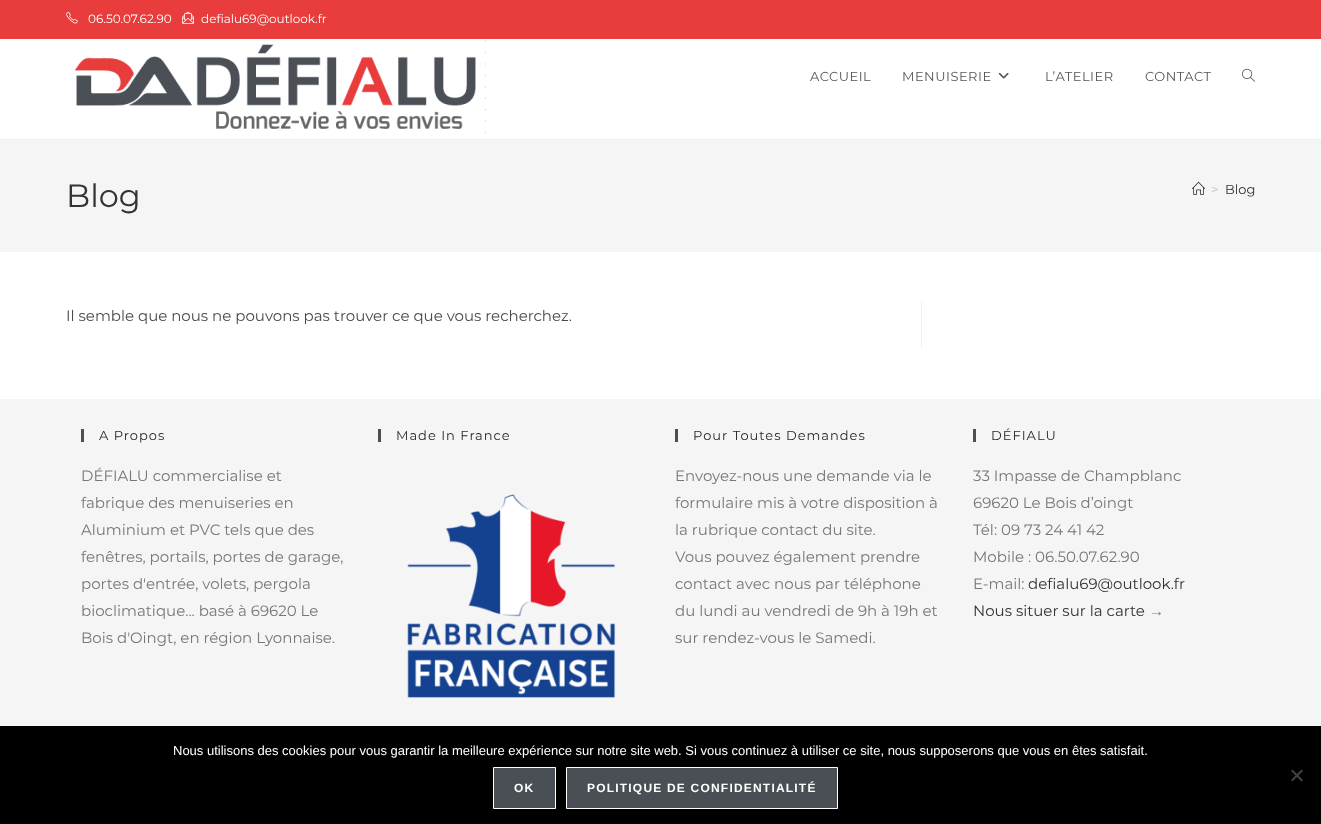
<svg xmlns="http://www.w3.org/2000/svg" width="1321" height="824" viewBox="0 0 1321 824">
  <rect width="100%" height="100%" fill="#fff"/>
  <path d="M0 0h1321v39H0z" fill="#e83d3c"/>
  <image x="66" y="11" width="12" height="13" href="img/1.png"/>
  <image x="182" y="11" width="12" height="13" href="img/2.png"/>
  <path d="M0 139h1321v1H0z" fill="#f1f1f1"/>
  <image x="74" y="40" width="412" height="94" href="img/3.png"/>
  <image x="998" y="72" width="11" height="7" href="img/4.png"/>
  <image x="1242" y="68" width="13" height="14" href="img/5.png"/>
  <path d="M0 140h1321v112H0z" fill="#f5f5f5"/>
  <image x="1192" y="181" width="13" height="14" href="img/6.png"/>
  <path d="M921 302h1v47H921z" fill="#f1f1f1"/>
  <path d="M0 399h1321v327H0z" fill="#f5f5f5"/>
  <path d="M81 429h3v13H81z" fill="#4a4f55"/>
  <path d="M378 429h3v13H378z" fill="#4a4f55"/>
  <image x="407" y="494" width="209" height="204" href="img/7.png"/>
  <path d="M675 429h3v13H675z" fill="#4a4f55"/>
  <path d="M973 429h3v13H973z" fill="#4a4f55"/>
  <path d="M0 726h1321v98H0z" fill="#000"/>
  <path d="M1301.5 769.5L1303 771L1292.5 781.5L1291 780Z" fill="#404040"/>
  <path d="M1291 771L1292.5 769.5L1303 780L1301.5 781.5Z" fill="#404040"/>
  <path d="M493.5 767.5h62v41H493.5z" fill="#4a4f55" stroke="#fff"/>
  <path d="M566.5 767.5h271v41H566.5z" fill="#4a4f55" stroke="#fff"/>
  <g font-family="Montserrat" font-size="12" fill="#fff">
    <text x="88" y="23">06.50.07.62.90</text>
    <text x="201" y="23">defialu69@outlook.fr</text>
  </g>
  <g font-family="Montserrat" font-size="13" letter-spacing="0.5" fill="#555">
    <text x="810" y="81">ACCUEIL</text>
    <text x="902" y="81">MENUISERIE</text>
    <text x="1045" y="81">L’ATELIER</text>
    <text x="1145" y="81">CONTACT</text>
  </g>
  <text x="66" y="207" font-family="Montserrat" font-size="32" fill="#333">Blog</text>
  <text x="1211" y="194" font-family="Montserrat" font-size="13" fill="#c6c6c6">&gt;</text>
  <text x="1225" y="194" font-family="Montserrat" font-size="13" fill="#333">Blog</text>
  <text x="66" y="321" font-family="Montserrat" font-size="15" fill="#4a4a4a">Il semble que nous ne pouvons pas trouver ce que vous recherchez.</text>
  <text x="99" y="440" font-family="Montserrat" font-size="13" letter-spacing="1" fill="#292929">A Propos</text>
  <g font-family="Montserrat" font-size="15" fill="#777">
    <text x="81" y="481">DÉFIALU commercialise et</text>
    <text x="81" y="508">fabrique des menuiseries en</text>
    <text x="81" y="535">Aluminium et PVC tels que des</text>
    <text x="81" y="562">fenêtres, portails, portes de garage,</text>
    <text x="81" y="589">portes d'entrée, volets, pergola</text>
    <text x="81" y="616">bioclimatique... basé à 69620 Le</text>
    <text x="81" y="643">Bois d'Oingt, en région Lyonnaise.</text>
  </g>
  <g font-family="Montserrat" font-size="13" letter-spacing="1" fill="#292929">
    <text x="396" y="440">Made In France</text>
    <text x="693" y="440">Pour Toutes Demandes</text>
  </g>
  <g font-family="Montserrat" font-size="15" fill="#777">
    <text x="675" y="481">Envoyez-nous une demande via le</text>
    <text x="675" y="508">formulaire mis à votre disposition à</text>
    <text x="675" y="535">la rubrique contact du site.</text>
    <text x="675" y="562">Vous pouvez également prendre</text>
    <text x="675" y="589">contact avec nous par téléphone</text>
    <text x="675" y="616">du lundi au vendredi de 9h à 19h et</text>
    <text x="675" y="643">sur rendez-vous le Samedi.</text>
  </g>
  <text x="991" y="440" font-family="Montserrat" font-size="13" letter-spacing="1" fill="#292929">DÉFIALU</text>
  <g font-family="Montserrat" font-size="15" fill="#777">
    <text x="973" y="481">33 Impasse de Champblanc</text>
    <text x="973" y="508">69620 Le Bois d’oingt</text>
    <text x="973" y="535">Tél: 09 73 24 41 42</text>
    <text x="973" y="562">Mobile : 06.50.07.62.90</text>
    <text x="973" y="589">E-mail:</text>
  </g>
  <g font-family="Montserrat" font-size="15" fill="#333">
    <text x="1028" y="589">defialu69@outlook.fr</text>
    <text x="973" y="616">Nous situer sur la carte</text>
  </g>
  <text x="1149" y="616" font-family="Liberation Serif" font-size="15" fill="#777">→</text>
  <text x="173" y="755" font-family="Liberation Sans" font-size="13" fill="#fff">Nous utilisons des cookies pour vous garantir la meilleure expérience sur notre site web. Si vous continuez à utiliser ce site, nous supposerons que vous en êtes satisfait.</text>
  <g font-family="Liberation Sans" font-size="12" font-weight="bold" letter-spacing="1.2" fill="#fff">
    <text x="514" y="792">OK</text>
    <text x="587" y="792">POLITIQUE DE CONFIDENTIALITÉ</text>
  </g>
</svg>
